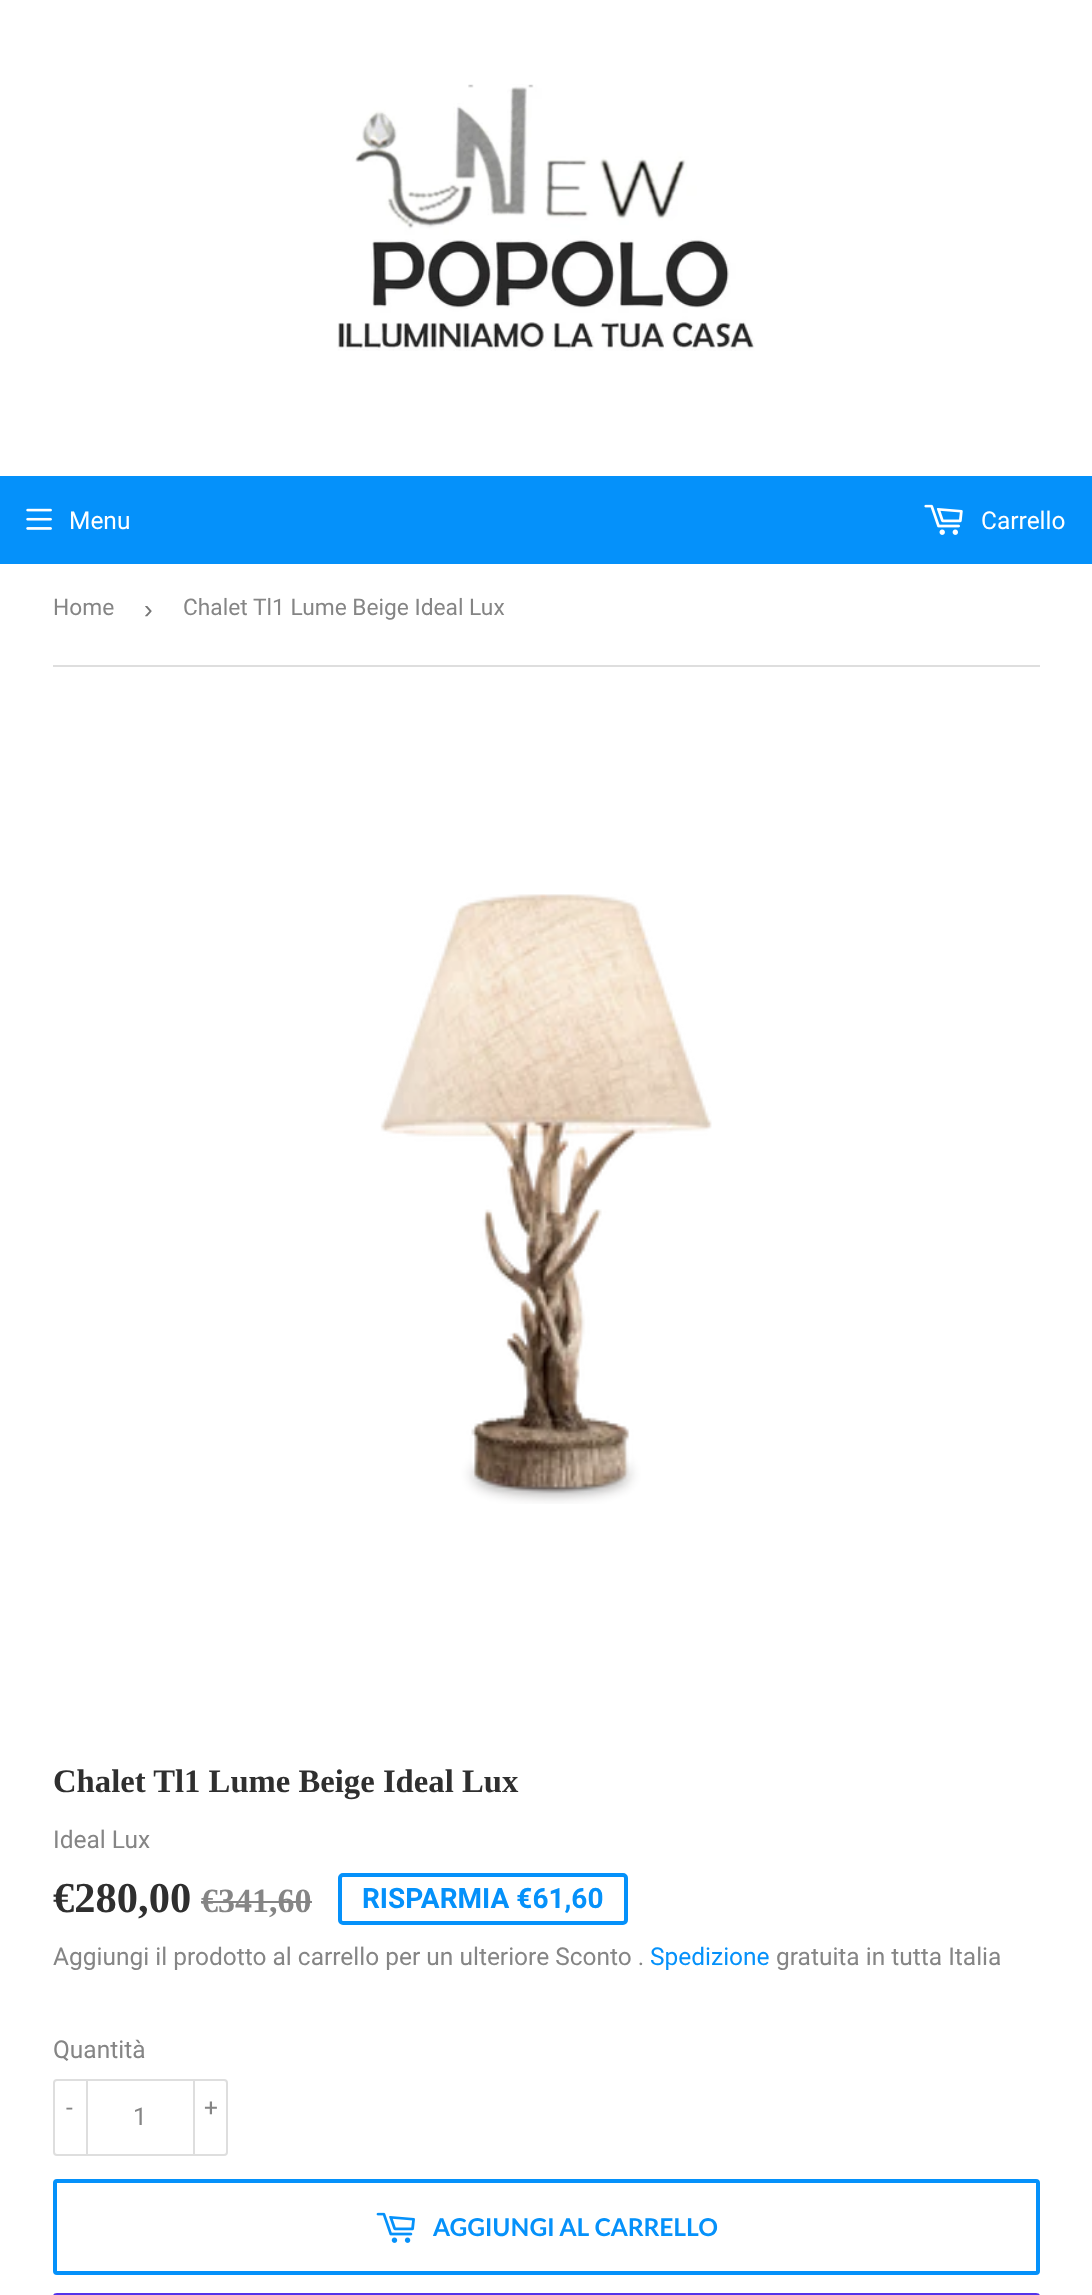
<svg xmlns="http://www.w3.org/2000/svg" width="1092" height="2295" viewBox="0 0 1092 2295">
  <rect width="100%" height="100%" fill="#fff"/>
  <image x="337" y="84" width="418" height="267" href="img/1.png"/>
  <path d="M0 476h1092v88H0z" fill="#0591fa"/>
  <image x="26" y="508" width="26" height="22" href="img/2.png"/>
  <image x="924" y="504" width="39" height="31" href="img/3.png"/>
  <path d="M53 665h987v2H53z" fill="#dedede"/>
  <image x="380" y="894" width="332" height="610" href="img/4.png"/>
  <path d="M201 1901h111v2H201z" fill="#858585"/>
  <rect x="340" y="1875" width="286" height="48" rx="3" fill="none" stroke="#0591fa" stroke-width="4"/>
  <rect x="54" y="2080" width="173" height="75" rx="3" fill="none" stroke="#dedede" stroke-width="2"/>
  <path d="M86 2079h2v77H86z" fill="#dedede"/>
  <path d="M193 2079h2v77H193z" fill="#dedede"/>
  <rect x="55" y="2181" width="983" height="92" rx="2" fill="none" stroke="#0591fa" stroke-width="4"/>
  <image x="376" y="2212" width="39" height="31" href="img/5.png"/>
  <rect x="53" y="2293" width="987" height="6" rx="4" fill="#5433eb"/>
  <g font-family="Roboto" font-size="24.5" fill="#fff">
    <text x="69" y="529">Menu</text>
    <text x="981" y="529">Carrello</text>
  </g>
  <text x="53" y="615" font-family="Roboto" font-size="22.75" fill="#858585">Home</text>
  <text x="144" y="618" font-family="Liberation Sans" font-size="26" fill="#767676">›</text>
  <text x="183" y="615" font-family="Roboto" font-size="22.75" fill="#858585">Chalet Tl1 Lume Beige Ideal Lux</text>
  <text x="53" y="1792" font-family="Liberation Serif" font-size="32.7" font-weight="bold" fill="#2f2f2f">Chalet Tl1 Lume Beige Ideal Lux</text>
  <text x="53" y="1848" font-family="Roboto" font-size="24.5" fill="#858585">Ideal Lux</text>
  <text x="53" y="1912" font-family="Liberation Serif" font-size="42.5" font-weight="bold" fill="#2f2f2f">€280,00</text>
  <text x="201" y="1912" font-family="Liberation Serif" font-size="34" font-weight="bold" fill="#858585">€341,60</text>
  <text x="362" y="1908" font-family="Roboto" font-size="28" font-weight="bold" fill="#0591fa">RISPARMIA €61,60</text>
  <text x="53" y="1965" font-family="Roboto" font-size="24.5" fill="#858585">Aggiungi il prodotto al carrello per un ulteriore Sconto .</text>
  <text x="650" y="1965" font-family="Roboto" font-size="24.5" fill="#0591fa">Spedizione</text>
  <g font-family="Roboto" font-size="24.5" fill="#858585">
    <text x="776" y="1965">gratuita in tutta Italia</text>
    <text x="53" y="2058">Quantità</text>
    <text x="66" y="2116">-</text>
    <text x="133" y="2125">1</text>
    <text x="204" y="2116">+</text>
  </g>
  <text x="433" y="2236" font-family="Lato" font-size="24.5" font-weight="bold" fill="#0591fa">AGGIUNGI AL CARRELLO</text>
</svg>
